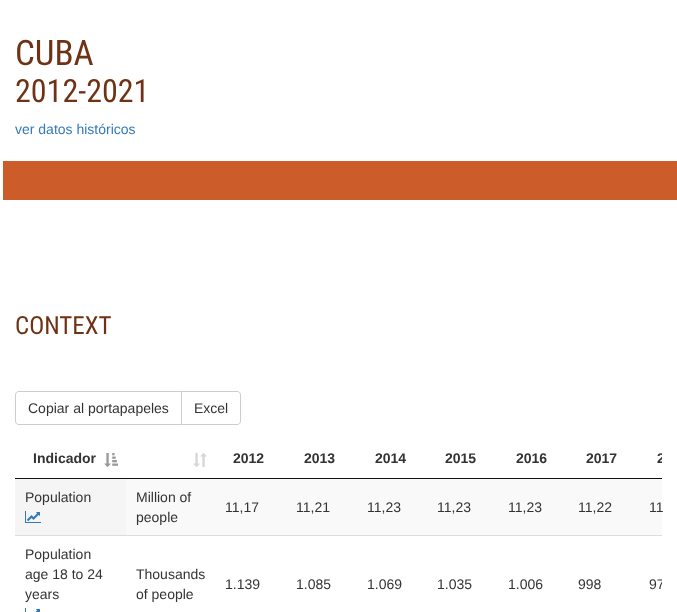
<svg xmlns="http://www.w3.org/2000/svg" width="677" height="612" viewBox="0 0 677 612">
  <defs>
    <clipPath id="clip1"><path d="M15 432h647v47H15z"/></clipPath>
    <clipPath id="clip2"><path d="M15 479h647v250H15z"/></clipPath>
  </defs>
  <rect width="100%" height="100%" fill="#fff"/>
  <image x="0" y="0" width="677" height="271" href="img/1.png"/>
  <path d="M19 391.5H181.5V424.5H19C17 424.5 15.5 423 15.5 421V395C15.5 393 17 391.5 19 391.5Z" fill="none" stroke="#ccc"/>
  <path d="M181.5 391.5H237C239 391.5 240.5 393 240.5 395V421C240.5 423 239 424.5 237 424.5H181.5Z" fill="#fff" stroke="#ccc"/>
  <path d="M15 478h200v1H15z" fill="#111"/>
  <image x="104" y="453" width="15" height="14" href="img/2.png"/>
  <image x="193" y="453" width="14" height="14" href="img/3.png"/>
  <path d="M215 478h447v1H215z" fill="#111"/>
  <path d="M126 479h536v56H126z" fill="#f9f9f9"/>
  <path d="M15 479h111v56H15z" fill="#f5f5f5"/>
  <image x="25" y="511" width="16" height="12" href="img/4.png"/>
  <path d="M15 535h647v1H15z" fill="#ddd"/>
  <image x="25" y="608" width="15" height="4" href="img/5.png"/>
  <text x="15" y="65" font-family="Roboto Condensed" font-size="35" fill="#6f3215">CUBA</text>
  <text x="15" y="102" font-family="Roboto Condensed" font-size="32" fill="#6f3215">2012-2021</text>
  <text x="15" y="134" font-family="Liberation Sans" font-size="14" fill="#337ab7">ver datos históricos</text>
  <text x="15" y="334" font-family="Roboto Condensed" font-size="25" fill="#6f3215">CONTEXT</text>
  <g font-family="Liberation Sans" font-size="14" fill="#333">
    <text x="28" y="413">Copiar al portapapeles</text>
    <text x="194" y="413">Excel</text>
  </g>
  <g font-family="Liberation Sans" font-size="14" font-weight="bold" fill="#333">
    <text x="33" y="463">Indicador</text>
    <text x="233" y="463">2012</text>
    <text x="304" y="463">2013</text>
    <text x="375" y="463">2014</text>
    <text x="445" y="463">2015</text>
    <text x="516" y="463">2016</text>
    <text x="586" y="463">2017</text>
  </g>
  <g clip-path="url(#clip1)">
    <text x="657" y="463" font-family="Liberation Sans" font-size="14" font-weight="bold" fill="#333">2</text>
  </g>
  <g font-family="Liberation Sans" font-size="14" fill="#333">
    <text x="25" y="502">Population</text>
    <text x="136" y="502">Million of</text>
    <text x="136" y="522">people</text>
    <text x="225" y="512">11,17</text>
    <text x="296" y="512">11,21</text>
    <text x="367" y="512">11,23</text>
    <text x="437" y="512">11,23</text>
    <text x="508" y="512">11,23</text>
    <text x="578" y="512">11,22</text>
    <text x="649" y="512">11</text>
    <text x="25" y="559">Population</text>
    <text x="25" y="579">age 18 to 24</text>
    <text x="25" y="599">years</text>
    <text x="136" y="579">Thousands</text>
    <text x="136" y="599">of people</text>
    <text x="225" y="589">1.139</text>
    <text x="296" y="589">1.085</text>
    <text x="367" y="589">1.069</text>
    <text x="437" y="589">1.035</text>
    <text x="508" y="589">1.006</text>
    <text x="578" y="589">998</text>
  </g>
  <g clip-path="url(#clip2)">
    <text x="649" y="589" font-family="Liberation Sans" font-size="14" fill="#333">97</text>
  </g>
</svg>
